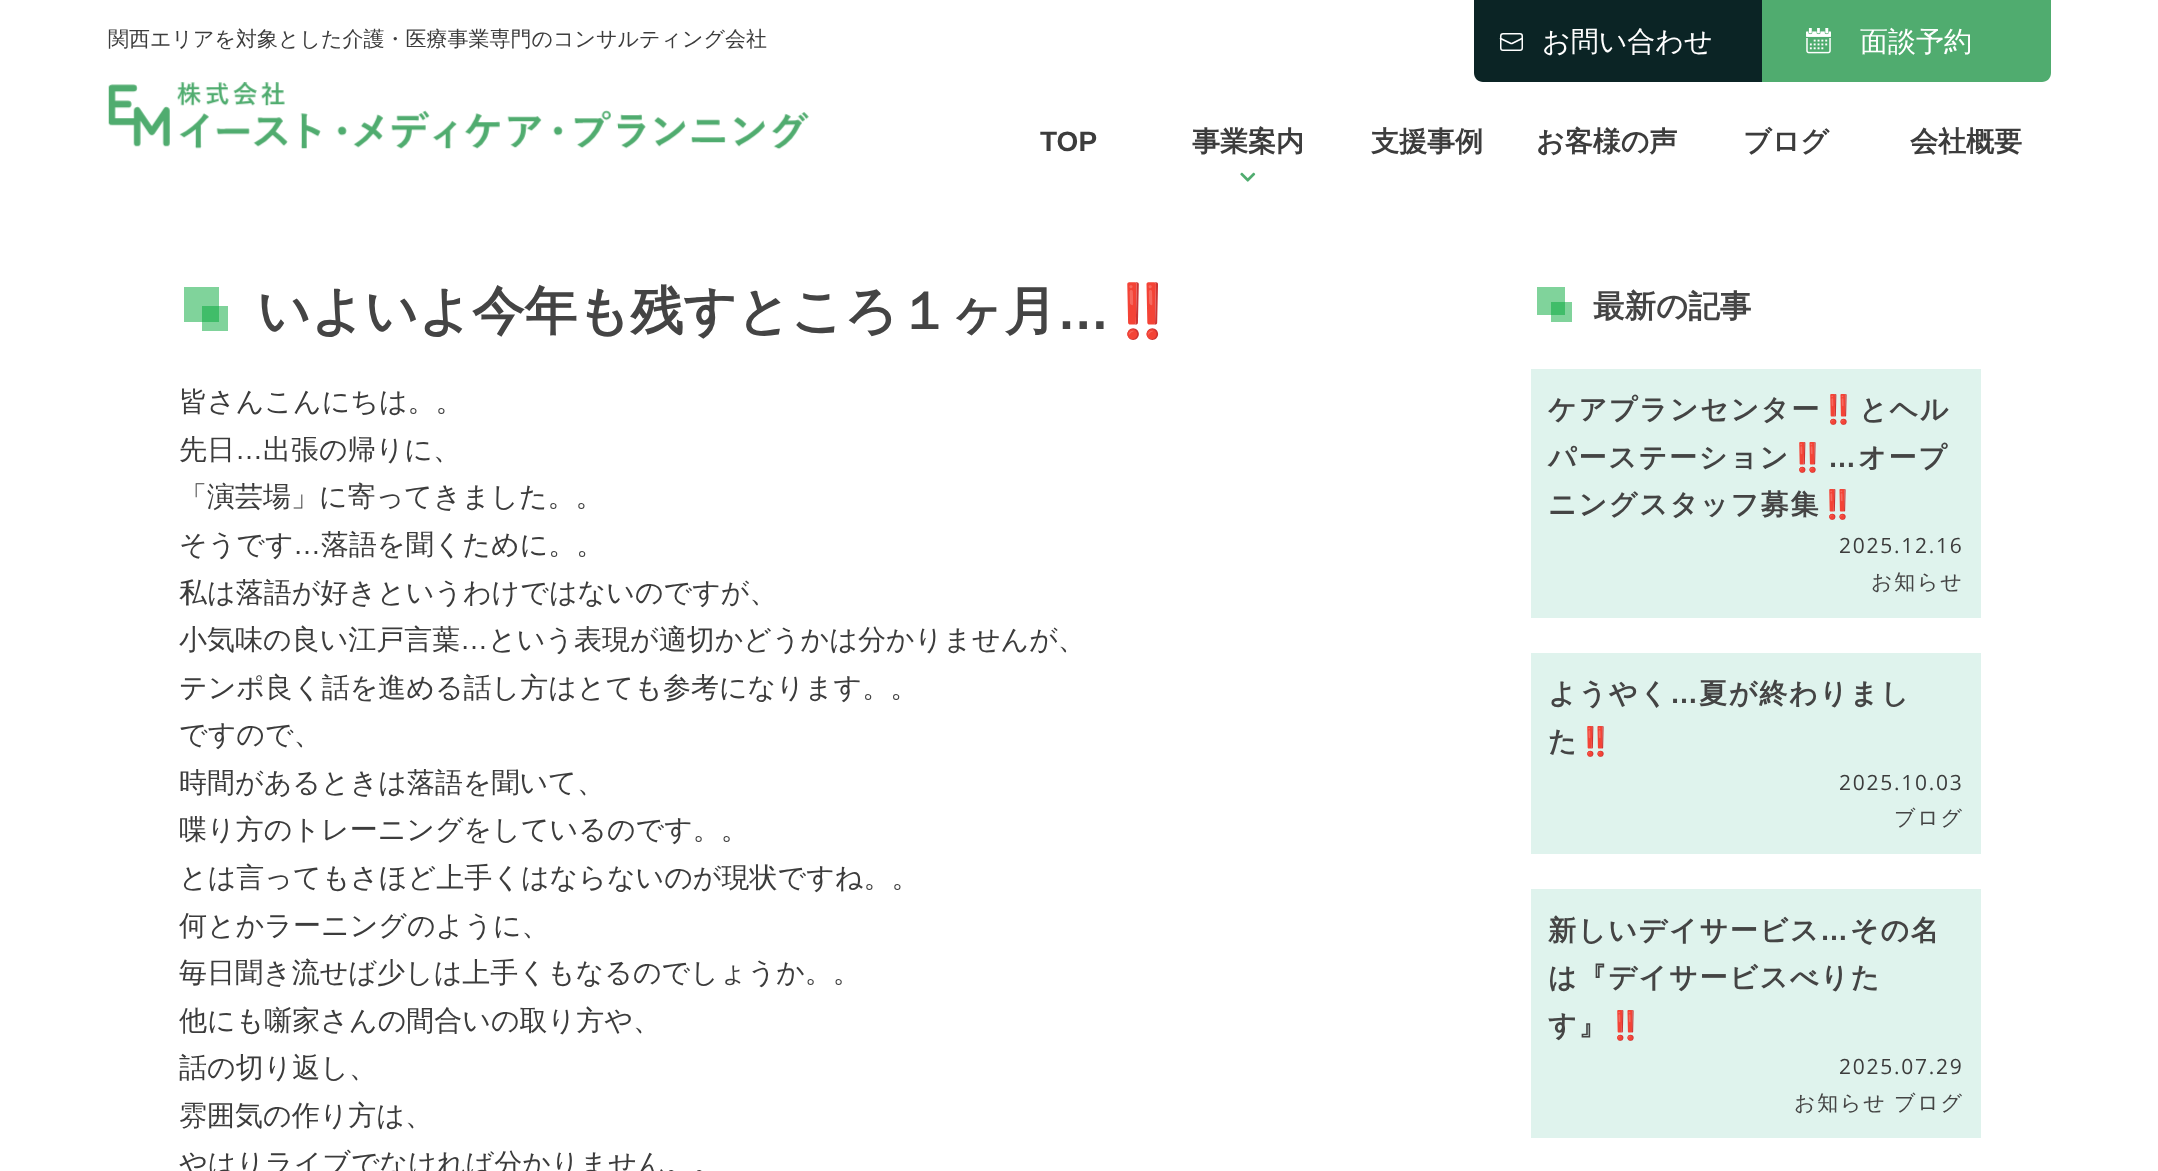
<svg xmlns="http://www.w3.org/2000/svg" width="2158" height="1171" viewBox="0 0 2158 1171">
  <rect width="100%" height="100%" fill="#fff"/>
  <path d="M1551 302h21v20H1551z" fill="#80d39b"/>
  <path d="M202 306h26v25H202z" fill="#80d39b"/>
  <image x="108" y="82" width="701" height="68" href="img/1.png"/>
  <path d="M1474 0H1762V82H1483C1478 82 1474 78 1474 73Z" fill="#0b2425"/>
  <rect x="1500.75" y="33.75" width="21.5" height="16.5" rx="2.25" fill="none" stroke="#fff" stroke-width="1.5"/>
  <path d="M1500.5 38.5L1511 43.5H1512L1522 38.5" fill="none" stroke="#fff" stroke-width="1.6" stroke-linecap="round" stroke-linejoin="round"/>
  <path d="M1762 0H2051V73C2051 78 2047 82 2042 82H1762Z" fill="#50ac6f"/>
  <image x="1806" y="28" width="25" height="26" href="img/2.png"/>
  <image x="1240" y="172" width="16" height="10" href="img/3.png"/>
  <path d="M184 287h35v35H184z" fill="#80d39b"/>
  <path d="M202 306h17v16H202z" fill="#40bd69"/>
  <path d="M1537 287h28v28H1537z" fill="#80d39b"/>
  <path d="M1551 302h14v13H1551z" fill="#40bd69"/>
  <path d="M1531 369h450v249H1531z" fill="#dff3ed"/>
  <path d="M1531 653h450v201H1531z" fill="#dff3ed"/>
  <path d="M1531 889h450v249H1531z" fill="#dff3ed"/>
  <text x="108" y="46" font-family="WenQuanYi Zen Hei" font-size="21" font-weight="500" fill="#3c3c3c">関西エリアを対象とした介護・医療事業専門のコンサルティング会社</text>
  <g font-family="WenQuanYi Zen Hei" font-size="28" font-weight="500" fill="#fff">
    <text x="1542" y="51">お問い合わせ</text>
    <text x="1860" y="51">面談予約</text>
  </g>
  <text x="1040" y="151" font-family="Liberation Sans" font-size="28" font-weight="bold" fill="#3c3c3c">TOP</text>
  <g font-family="WenQuanYi Zen Hei" font-size="28" font-weight="bold" fill="#3c3c3c">
    <text x="1192" y="151">事業案内</text>
    <text x="1371" y="151">支援事例</text>
    <text x="1536" y="151">お客様の声</text>
    <text x="1743" y="151">ブログ</text>
    <text x="1910" y="151">会社概要</text>
  </g>
  <text x="257" y="329" font-family="WenQuanYi Zen Hei" font-size="52.5" font-weight="bold" fill="#444">いよいよ今年も残すところ１ヶ月</text>
  <text x="1110" y="329" font-family="Noto Color Emoji" font-size="52.5" font-weight="bold" fill="#444">‼️</text>
  <text x="1057" y="329" font-family="Liberation Sans" font-size="52.5" font-weight="bold" fill="#444">…</text>
  <g font-family="WenQuanYi Zen Hei" font-size="28" font-weight="500" fill="#3c3c3c">
    <text x="179" y="411">皆さんこんにちは。。</text>
    <text x="179" y="459">先日</text>
  </g>
  <text x="235" y="459" font-family="Liberation Sans" font-size="28" fill="#3c3c3c">…</text>
  <g font-family="WenQuanYi Zen Hei" font-size="28" font-weight="500" fill="#3c3c3c">
    <text x="263" y="459">出張の帰りに、</text>
    <text x="179" y="506">「演芸場」に寄ってきました。。</text>
    <text x="179" y="554">そうです</text>
  </g>
  <text x="293" y="554" font-family="Liberation Sans" font-size="28" fill="#3c3c3c">…</text>
  <g font-family="WenQuanYi Zen Hei" font-size="28" font-weight="500" fill="#3c3c3c">
    <text x="321" y="554">落語を聞くために。。</text>
    <text x="179" y="602">私は落語が好きというわけではないのですが、</text>
    <text x="179" y="649">小気味の良い江戸言葉</text>
  </g>
  <text x="460" y="649" font-family="Liberation Sans" font-size="28" fill="#3c3c3c">…</text>
  <g font-family="WenQuanYi Zen Hei" font-size="28" font-weight="500" fill="#3c3c3c">
    <text x="488" y="649">という表現が適切かどうかは分かりませんが、</text>
    <text x="179" y="697">テンポ良く話を進める話し方はとても参考になります。。</text>
    <text x="179" y="744">ですので、</text>
    <text x="179" y="792">時間があるときは落語を聞いて、</text>
    <text x="179" y="839">喋り方のトレーニングをしているのです。。</text>
    <text x="179" y="887">とは言ってもさほど上手くはならないのが現状ですね。。</text>
    <text x="179" y="935">何とかラーニングのように、</text>
    <text x="179" y="982">毎日聞き流せば少しは上手くもなるのでしょうか。。</text>
    <text x="179" y="1030">他にも噺家さんの間合いの取り方や、</text>
    <text x="179" y="1077">話の切り返し、</text>
    <text x="179" y="1125">雰囲気の作り方は、</text>
    <text x="179" y="1173">やはりライブでなければ分かりません。。</text>
  </g>
  <text x="1593" y="317" font-family="WenQuanYi Zen Hei" font-size="31.5" font-weight="bold" fill="#444">最新の記事</text>
  <text x="1548" y="419" font-family="WenQuanYi Zen Hei" font-size="28" font-weight="bold" letter-spacing="1.75" fill="#444">ケアプランセンター</text>
  <text x="1821" y="419" font-family="Noto Color Emoji" font-size="28" font-weight="bold" letter-spacing="1.75" fill="#444">‼️</text>
  <g font-family="WenQuanYi Zen Hei" font-size="28" font-weight="bold" letter-spacing="1.75" fill="#444">
    <text x="1859" y="419">とヘル</text>
    <text x="1548" y="467">パーステーション</text>
  </g>
  <text x="1790" y="467" font-family="Noto Color Emoji" font-size="28" font-weight="bold" letter-spacing="1.75" fill="#444">‼️</text>
  <text x="1828" y="467" font-family="Liberation Sans" font-size="28" font-weight="bold" letter-spacing="1.75" fill="#444">…</text>
  <g font-family="WenQuanYi Zen Hei" font-size="28" font-weight="bold" letter-spacing="1.75" fill="#444">
    <text x="1858" y="467">オープ</text>
    <text x="1548" y="514">ニングスタッフ募集</text>
  </g>
  <text x="1820" y="514" font-family="Noto Color Emoji" font-size="28" font-weight="bold" letter-spacing="1.75" fill="#444">‼️</text>
  <text x="1839" y="553" font-family="Open Sans" font-size="21" letter-spacing="1.75" fill="#3c3c3c">2025.12.16</text>
  <text x="1871" y="589" font-family="WenQuanYi Zen Hei" font-size="21" font-weight="500" letter-spacing="1.75" fill="#444">お知らせ</text>
  <text x="1548" y="703" font-family="WenQuanYi Zen Hei" font-size="28" font-weight="bold" letter-spacing="1.75" fill="#444">ようやく</text>
  <text x="1670" y="703" font-family="Liberation Sans" font-size="28" font-weight="bold" letter-spacing="1.75" fill="#444">…</text>
  <g font-family="WenQuanYi Zen Hei" font-size="28" font-weight="bold" letter-spacing="1.75" fill="#444">
    <text x="1699" y="703">夏が終わりまし</text>
    <text x="1548" y="751">た</text>
  </g>
  <text x="1578" y="751" font-family="Noto Color Emoji" font-size="28" font-weight="bold" letter-spacing="1.75" fill="#444">‼️</text>
  <text x="1839" y="790" font-family="Open Sans" font-size="21" letter-spacing="1.75" fill="#3c3c3c">2025.10.03</text>
  <text x="1894" y="825" font-family="WenQuanYi Zen Hei" font-size="21" font-weight="500" letter-spacing="1.75" fill="#444">ブログ</text>
  <text x="1548" y="940" font-family="WenQuanYi Zen Hei" font-size="28" font-weight="bold" letter-spacing="1.75" fill="#444">新しいデイサービス</text>
  <text x="1820" y="940" font-family="Liberation Sans" font-size="28" font-weight="bold" letter-spacing="1.75" fill="#444">…</text>
  <g font-family="WenQuanYi Zen Hei" font-size="28" font-weight="bold" letter-spacing="1.75" fill="#444">
    <text x="1850" y="940">その名</text>
    <text x="1548" y="987">は『デイサービスべりた</text>
    <text x="1548" y="1035">す』</text>
  </g>
  <text x="1608" y="1035" font-family="Noto Color Emoji" font-size="28" font-weight="bold" letter-spacing="1.75" fill="#444">‼️</text>
  <text x="1839" y="1074" font-family="Open Sans" font-size="21" letter-spacing="1.75" fill="#3c3c3c">2025.07.29</text>
  <g font-family="WenQuanYi Zen Hei" font-size="21" font-weight="500" letter-spacing="1.75" fill="#444">
    <text x="1794" y="1110">お知らせ</text>
    <text x="1894" y="1110">ブログ</text>
  </g>
</svg>
